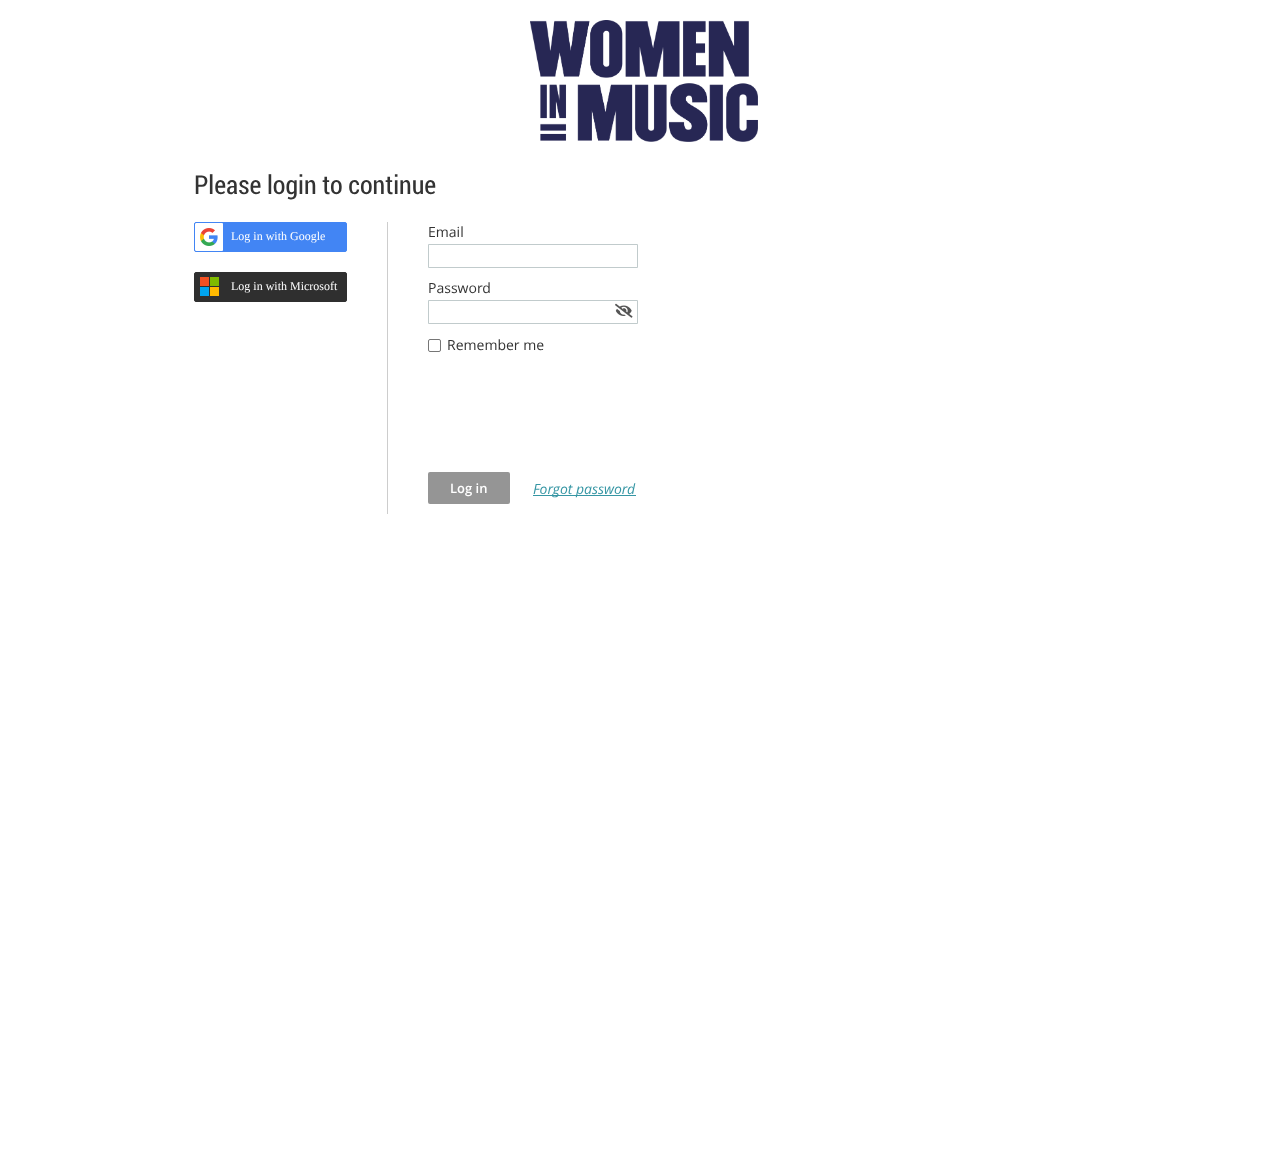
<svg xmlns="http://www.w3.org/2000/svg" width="1288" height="1168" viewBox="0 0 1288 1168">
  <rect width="100%" height="100%" fill="#fff"/>
  <image x="530" y="20" width="228" height="122" href="img/1.png"/>
  <path d="M387 222h1v292H387z" fill="#cdcdcd"/>
  <rect x="194.5" y="222.5" width="152" height="29" rx="1.5" fill="#4285f4" stroke="#4285f4"/>
  <image x="195" y="223" width="28" height="28" href="img/2.png"/>
  <rect x="194.5" y="272.5" width="152" height="29" rx="1.5" fill="#2f2f2f" stroke="#2f2f2f"/>
  <path d="M200 277h9v9H200z" fill="#f25022"/>
  <path d="M200 287h9v9H200z" fill="#00a4ef"/>
  <path d="M210 277h9v9H210z" fill="#7fba00"/>
  <path d="M210 287h9v9H210z" fill="#ffb900"/>
  <path d="M428.5 244.5h209v23H428.5z" fill="none" stroke="#c1cbcc"/>
  <path d="M428.5 300.5h209v23H428.5z" fill="none" stroke="#c1cbcc"/>
  <image x="615" y="303" width="18" height="15" href="img/3.png"/>
  <rect x="428.5" y="339.5" width="12" height="12" rx="1.5" fill="none" stroke="#767676"/>
  <rect x="428" y="472" width="82" height="32" rx="2" fill="#959595"/>
  <path d="M533 495h103v1H533z" fill="#3696a4"/>
  <text x="194" y="194" font-family="Roboto Condensed" font-size="26" fill="#333">Please login to continue</text>
  <g font-family="Liberation Serif" font-size="12" fill="#fff">
    <text x="231" y="240">Log in with Google</text>
    <text x="231" y="290">Log in with Microsoft</text>
  </g>
  <g font-family="Open Sans" font-size="14" fill="#333">
    <text x="428" y="237">Email</text>
    <text x="428" y="293">Password</text>
    <text x="447" y="350">Remember me</text>
  </g>
  <text x="450" y="493" font-family="Open Sans" font-size="13" font-weight="600" fill="#fff">Log in</text>
  <text x="533" y="494" font-family="Open Sans" font-size="14" font-style="italic" fill="#3696a4">Forgot password</text>
</svg>
